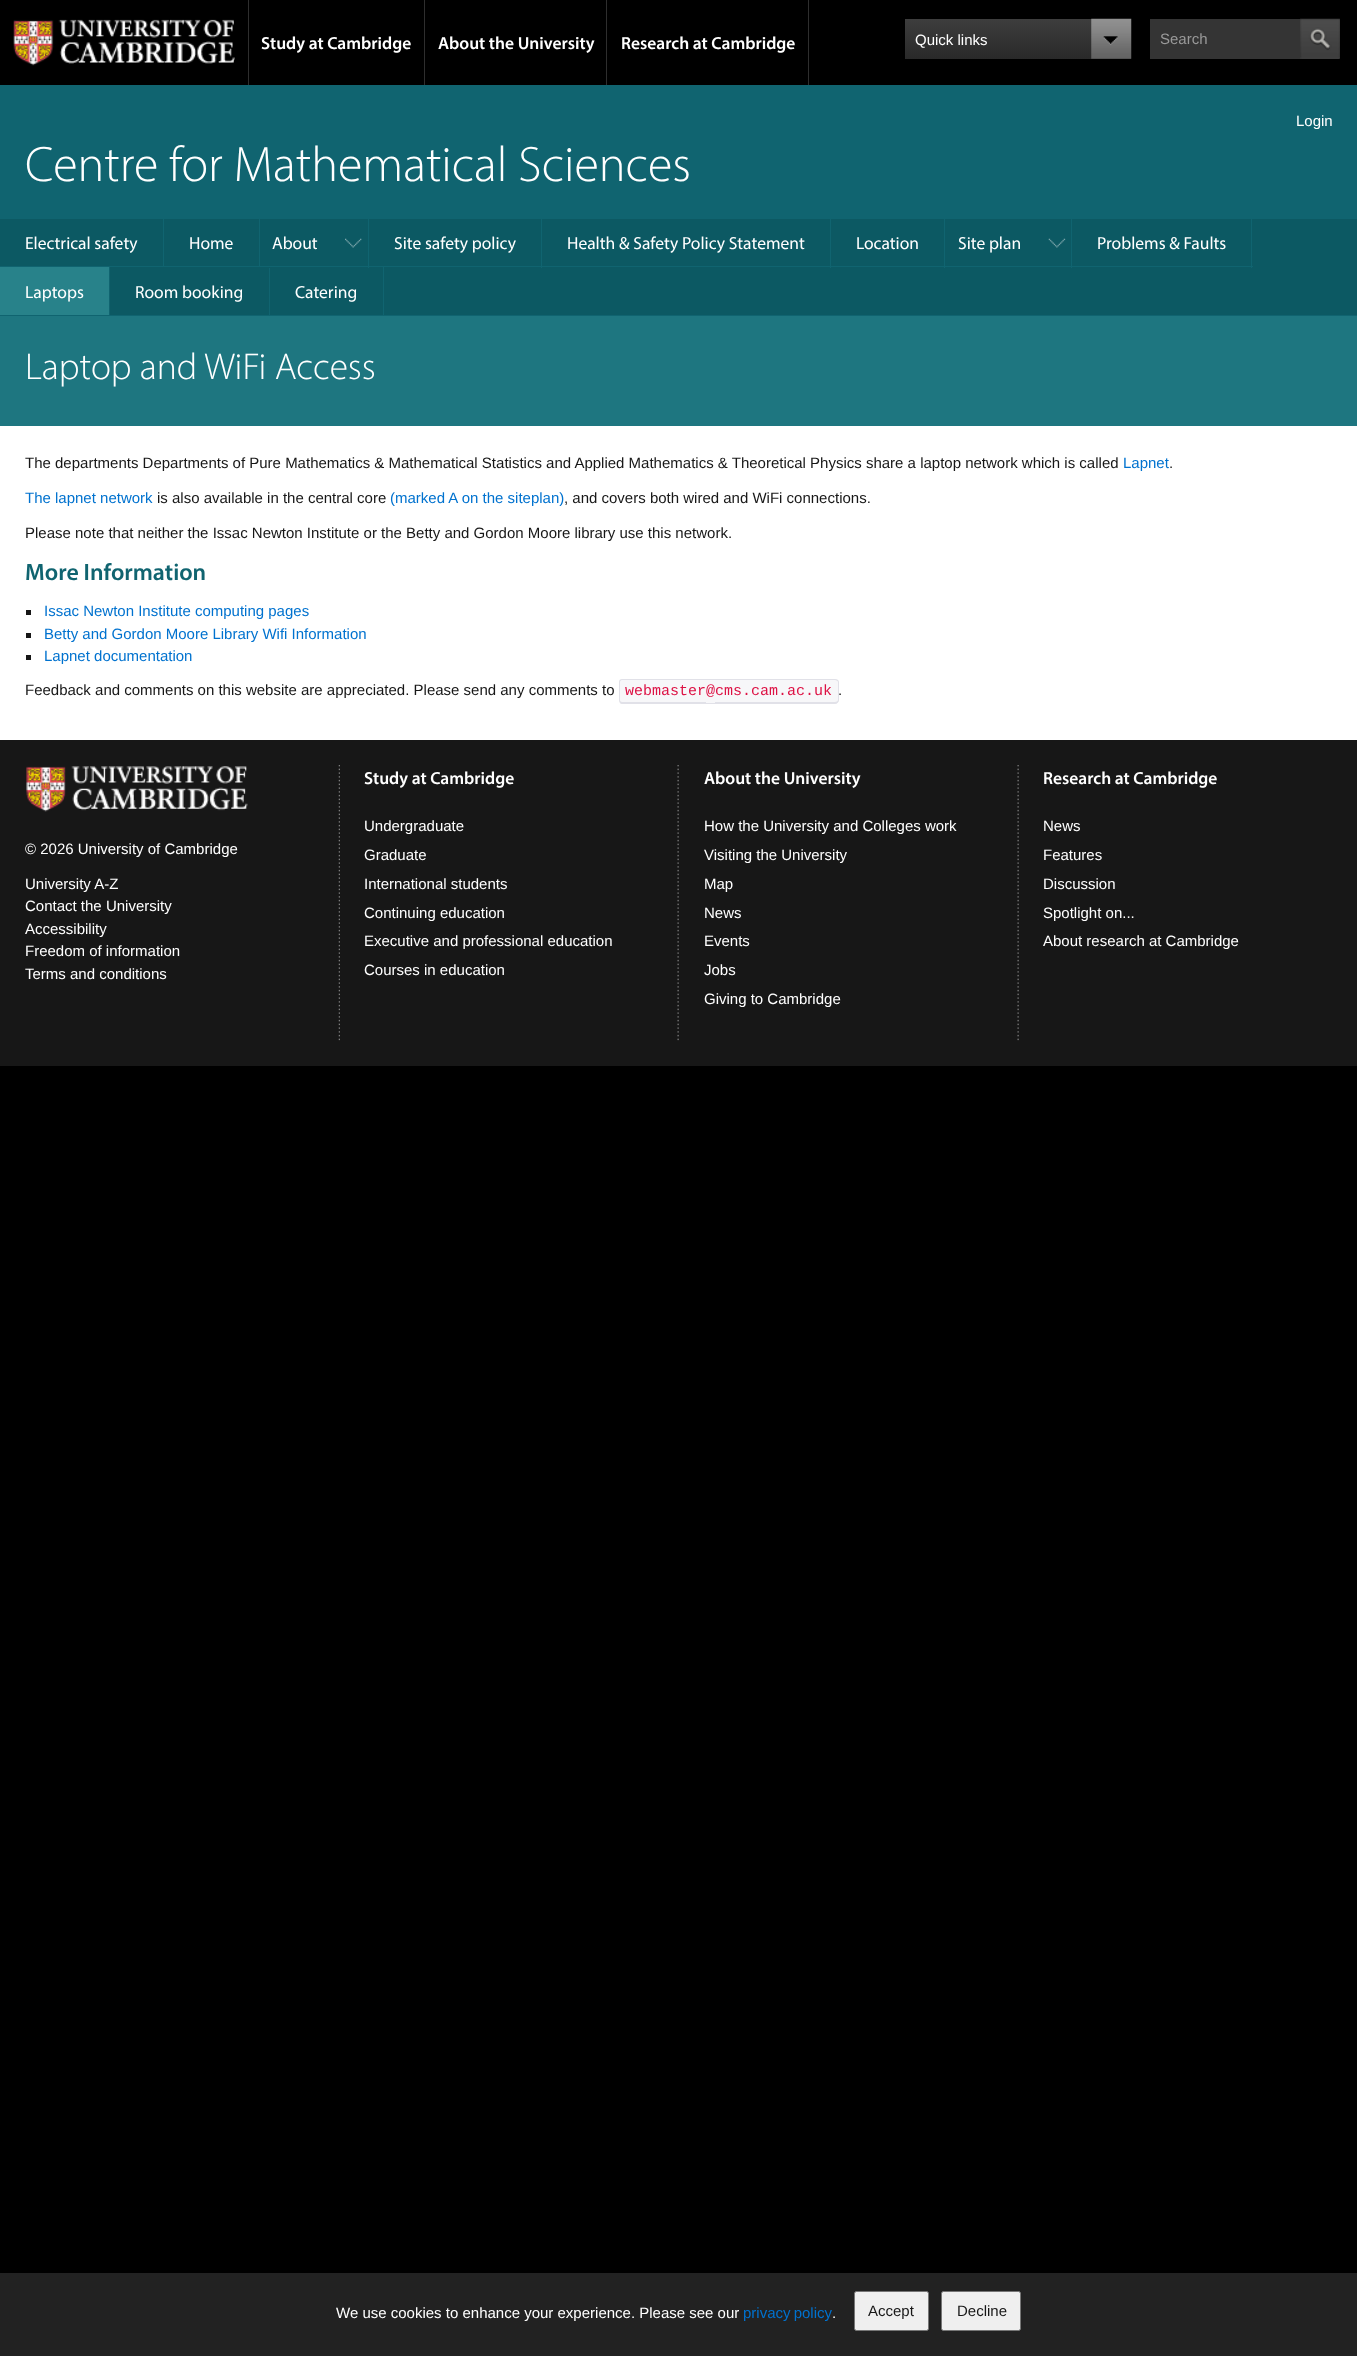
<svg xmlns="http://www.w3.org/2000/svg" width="1357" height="2356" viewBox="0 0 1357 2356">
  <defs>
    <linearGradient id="g1" gradientUnits="userSpaceOnUse" x1="1018" y1="19" x2="1018" y2="59"><stop offset="0" stop-color="#3d3d3d"/><stop offset="1" stop-color="#292929"/></linearGradient>
  </defs>
  <rect width="100%" height="100%" fill="#000"/>
  <image x="13" y="19" width="222" height="47" href="img/1.png"/>
  <path d="M248 0h1v85H248z" fill="#2e2e2e"/>
  <path d="M424 0h1v85H424z" fill="#2e2e2e"/>
  <path d="M606 0h1v85H606z" fill="#2e2e2e"/>
  <path d="M808 0h1v85H808z" fill="#2e2e2e"/>
  <path d="M905 19h226v40H905z" fill="url(#g1)"/>
  <image x="1091" y="18" width="41" height="41" href="img/2.png"/>
  <path d="M1150 19h189v40H1150z" fill="#343434"/>
  <image x="1300" y="18" width="40" height="41" href="img/3.png"/>
  <path d="M0 85h1357v133H0z" fill="#106470"/>
  <path d="M384 219h973v96H384z" fill="#0c5963"/>
  <path d="M1073 218h284v1H1073z" fill="#106470"/>
  <path d="M384 315h973v1H384z" fill="#106470"/>
  <path d="M0 219h163v47H0z" fill="#0c5963"/>
  <path d="M0 218h260v1H0z" fill="#106470"/>
  <path d="M163 218h1v50H163z" fill="#106470"/>
  <path d="M164 219h95v47H164z" fill="#0c5963"/>
  <path d="M259 218h1v50H259z" fill="#106470"/>
  <path d="M110 267h159v48H110z" fill="#0c5963"/>
  <path d="M269 266h1v50H269z" fill="#106470"/>
  <path d="M369 219h15v49H369z" fill="#0c5963"/>
  <path d="M270 267h113v48H270z" fill="#0c5963"/>
  <path d="M260 219h108v49H260z" fill="#0c5963"/>
  <image x="345" y="238" width="17" height="10" href="img/4.png"/>
  <path d="M260 218h813v1H260z" fill="#106470"/>
  <path d="M368 218h1v50H368z" fill="#106470"/>
  <path d="M260 266h109v1H260z" fill="#106470"/>
  <path d="M541 218h1v50H541z" fill="#106470"/>
  <path d="M369 266h174v1H369z" fill="#106470"/>
  <path d="M830 218h1v50H830z" fill="#106470"/>
  <path d="M543 266h288v1H543z" fill="#106470"/>
  <path d="M944 218h1v50H944z" fill="#106470"/>
  <path d="M831 266h114v1H831z" fill="#106470"/>
  <image x="1048" y="238" width="18" height="10" href="img/5.png"/>
  <path d="M1071 218h1v50H1071z" fill="#106470"/>
  <path d="M945 266h128v1H945z" fill="#106470"/>
  <path d="M1251 218h1v50H1251z" fill="#106470"/>
  <path d="M1073 266h180v1H1073z" fill="#106470"/>
  <path d="M0 267h109v48H0z" fill="#28828a"/>
  <path d="M0 266h260v1H0z" fill="#106470"/>
  <path d="M109 266h1v50H109z" fill="#106470"/>
  <path d="M0 315h110v1H0z" fill="#106470"/>
  <path d="M110 315h160v1H110z" fill="#106470"/>
  <path d="M383 266h1v50H383z" fill="#106470"/>
  <path d="M270 315h114v1H270z" fill="#106470"/>
  <path d="M0 316h1357v110H0z" fill="#1e7680"/>
  <path d="M0 426h1357v314H0z" fill="#fff"/>
  <path d="M26 610h5v5H26z" fill="#171717"/>
  <path d="M26 633h5v5H26z" fill="#171717"/>
  <path d="M26 655h5v5H26z" fill="#171717"/>
  <path d="M623 679H706V704H623C621 704 619 702 619 700V683C619 681 621 679 623 679Z" fill="#f7f7f9"/>
  <path d="M622 679H706V704H622C620 704 619 702 619 700V682C619 680 620 679 622 679ZM622 680H706V702H622C621 702 620 701 620 700V682C620 681 621 680 622 680Z" fill="#e1e1e8" fill-rule="evenodd"/>
  <path d="M706 680h9v23H706z" fill="#f7f7f9"/>
  <path d="M706 679h9v1H706z" fill="#e1e1e8"/>
  <path d="M706 703h9v1H706z" fill="#e1e1e8"/>
  <path d="M715 679H835C837 679 839 681 839 683V700C839 702 837 704 835 704H715Z" fill="#f7f7f9"/>
  <path d="M715 679H835C837 679 839 680 839 682V700C839 702 837 704 835 704H715ZM715 680H835C836 680 838 681 838 682V700C838 701 836 702 835 702H715Z" fill="#e1e1e8" fill-rule="evenodd"/>
  <path d="M0 740h1357v326H0z" fill="#171717"/>
  <image x="338" y="765" width="2" height="276" href="img/6.png"/>
  <image x="26" y="766" width="222" height="46" href="img/7.png"/>
  <image x="677" y="765" width="2" height="276" href="img/8.png"/>
  <image x="1017" y="765" width="2" height="276" href="img/8.png"/>
  <path d="M0 2273h1357v83H0z" fill="#222"/>
  <rect x="854.5" y="2291.5" width="74" height="39" rx="2" fill="#efefef" stroke="#767676"/>
  <rect x="941.5" y="2291.5" width="79" height="39" rx="2" fill="#efefef" stroke="#767676"/>
  <g font-family="Myriad" font-size="17.5" font-weight="600" fill="#fff">
    <text x="261" y="49">Study at Cambridge</text>
    <text x="438" y="49">About the University</text>
    <text x="621" y="49">Research at Cambridge</text>
  </g>
  <text x="915" y="45" font-family="Liberation Sans" font-size="15" fill="#fff">Quick links</text>
  <text x="1160" y="44" font-family="Liberation Sans" font-size="15" fill="#999">Search</text>
  <text x="1296" y="126" font-family="Liberation Sans" font-size="15" fill="#fff">Login</text>
  <text x="25" y="181" font-family="Myriad" font-size="50" font-weight="300" fill="#fff">Centre for Mathematical Sciences</text>
  <g font-family="Myriad" font-size="17.5" fill="#fff">
    <text x="25" y="249">Electrical safety</text>
    <text x="189" y="249">Home</text>
    <text x="272" y="249">About</text>
    <text x="394" y="249">Site safety policy</text>
    <text x="567" y="249">Health &amp; Safety Policy Statement</text>
    <text x="856" y="249">Location</text>
    <text x="958" y="249">Site plan</text>
    <text x="1097" y="249">Problems &amp; Faults</text>
    <text x="25" y="298">Laptops</text>
    <text x="135" y="298">Room booking</text>
    <text x="295" y="298">Catering</text>
  </g>
  <text x="25" y="379" font-family="Myriad" font-size="37.5" font-weight="300" fill="#fff">Laptop and WiFi Access</text>
  <text x="25" y="468" font-family="Liberation Sans" font-size="15" fill="#171717">The departments Departments of Pure Mathematics &amp; Mathematical Statistics and Applied Mathematics &amp; Theoretical Physics share a laptop network which is called</text>
  <text x="1123" y="468" font-family="Liberation Sans" font-size="15" fill="#0072cf">Lapnet</text>
  <text x="1169" y="468" font-family="Liberation Sans" font-size="15" fill="#171717">.</text>
  <text x="25" y="503" font-family="Liberation Sans" font-size="15" fill="#0072cf">The lapnet network</text>
  <text x="157" y="503" font-family="Liberation Sans" font-size="15" fill="#171717">is also available in the central core</text>
  <text x="390" y="503" font-family="Liberation Sans" font-size="15" fill="#0072cf">(marked A on the siteplan)</text>
  <g font-family="Liberation Sans" font-size="15" fill="#171717">
    <text x="564" y="503">, and covers both wired and WiFi connections.</text>
    <text x="25" y="538">Please note that neither the Issac Newton Institute or the Betty and Gordon Moore library use this network.</text>
  </g>
  <text x="25" y="580" font-family="Myriad" font-size="23.75" font-weight="600" fill="#106470">More Information</text>
  <g font-family="Liberation Sans" font-size="15" fill="#0072cf">
    <text x="44" y="616">Issac Newton Institute computing pages</text>
    <text x="44" y="639">Betty and Gordon Moore Library Wifi Information</text>
    <text x="44" y="661">Lapnet documentation</text>
  </g>
  <text x="25" y="695" font-family="Liberation Sans" font-size="15" fill="#171717">Feedback and comments on this website are appreciated. Please send any comments to</text>
  <text x="625" y="695" font-family="Liberation Mono" font-size="15" fill="#d14">webmaster@cms.cam.ac.uk</text>
  <text x="838" y="695" font-family="Liberation Sans" font-size="15" fill="#171717">.</text>
  <g font-family="Liberation Sans" font-size="15" fill="#fff">
    <text x="25" y="854">© 2026 University of Cambridge</text>
    <text x="25" y="889">University A-Z</text>
    <text x="25" y="911">Contact the University</text>
    <text x="25" y="934">Accessibility</text>
    <text x="25" y="956">Freedom of information</text>
    <text x="25" y="979">Terms and conditions</text>
  </g>
  <text x="364" y="784" font-family="Myriad" font-size="17.5" font-weight="600" fill="#fff">Study at Cambridge</text>
  <g font-family="Liberation Sans" font-size="15" fill="#fff">
    <text x="364" y="831">Undergraduate</text>
    <text x="364" y="860">Graduate</text>
    <text x="364" y="889">International students</text>
    <text x="364" y="918">Continuing education</text>
    <text x="364" y="946">Executive and professional education</text>
    <text x="364" y="975">Courses in education</text>
  </g>
  <text x="704" y="784" font-family="Myriad" font-size="17.5" font-weight="600" fill="#fff">About the University</text>
  <g font-family="Liberation Sans" font-size="15" fill="#fff">
    <text x="704" y="831">How the University and Colleges work</text>
    <text x="704" y="860">Visiting the University</text>
    <text x="704" y="889">Map</text>
    <text x="704" y="918">News</text>
    <text x="704" y="946">Events</text>
    <text x="704" y="975">Jobs</text>
    <text x="704" y="1004">Giving to Cambridge</text>
  </g>
  <text x="1043" y="784" font-family="Myriad" font-size="17.5" font-weight="600" fill="#fff">Research at Cambridge</text>
  <g font-family="Liberation Sans" font-size="15" fill="#fff">
    <text x="1043" y="831">News</text>
    <text x="1043" y="860">Features</text>
    <text x="1043" y="889">Discussion</text>
    <text x="1043" y="918">Spotlight on...</text>
    <text x="1043" y="946">About research at Cambridge</text>
    <text x="336" y="2318">We use cookies to enhance your experience. Please see our</text>
  </g>
  <text x="743" y="2318" word-spacing="-1" font-family="Liberation Sans" font-size="15" fill="#0072cf">privacy policy</text>
  <text x="832" y="2318" font-family="Liberation Sans" font-size="15" fill="#fff">.</text>
  <g font-family="Liberation Sans" font-size="15" fill="#171717">
    <text x="868" y="2316">Accept</text>
    <text x="957" y="2316">Decline</text>
  </g>
</svg>
